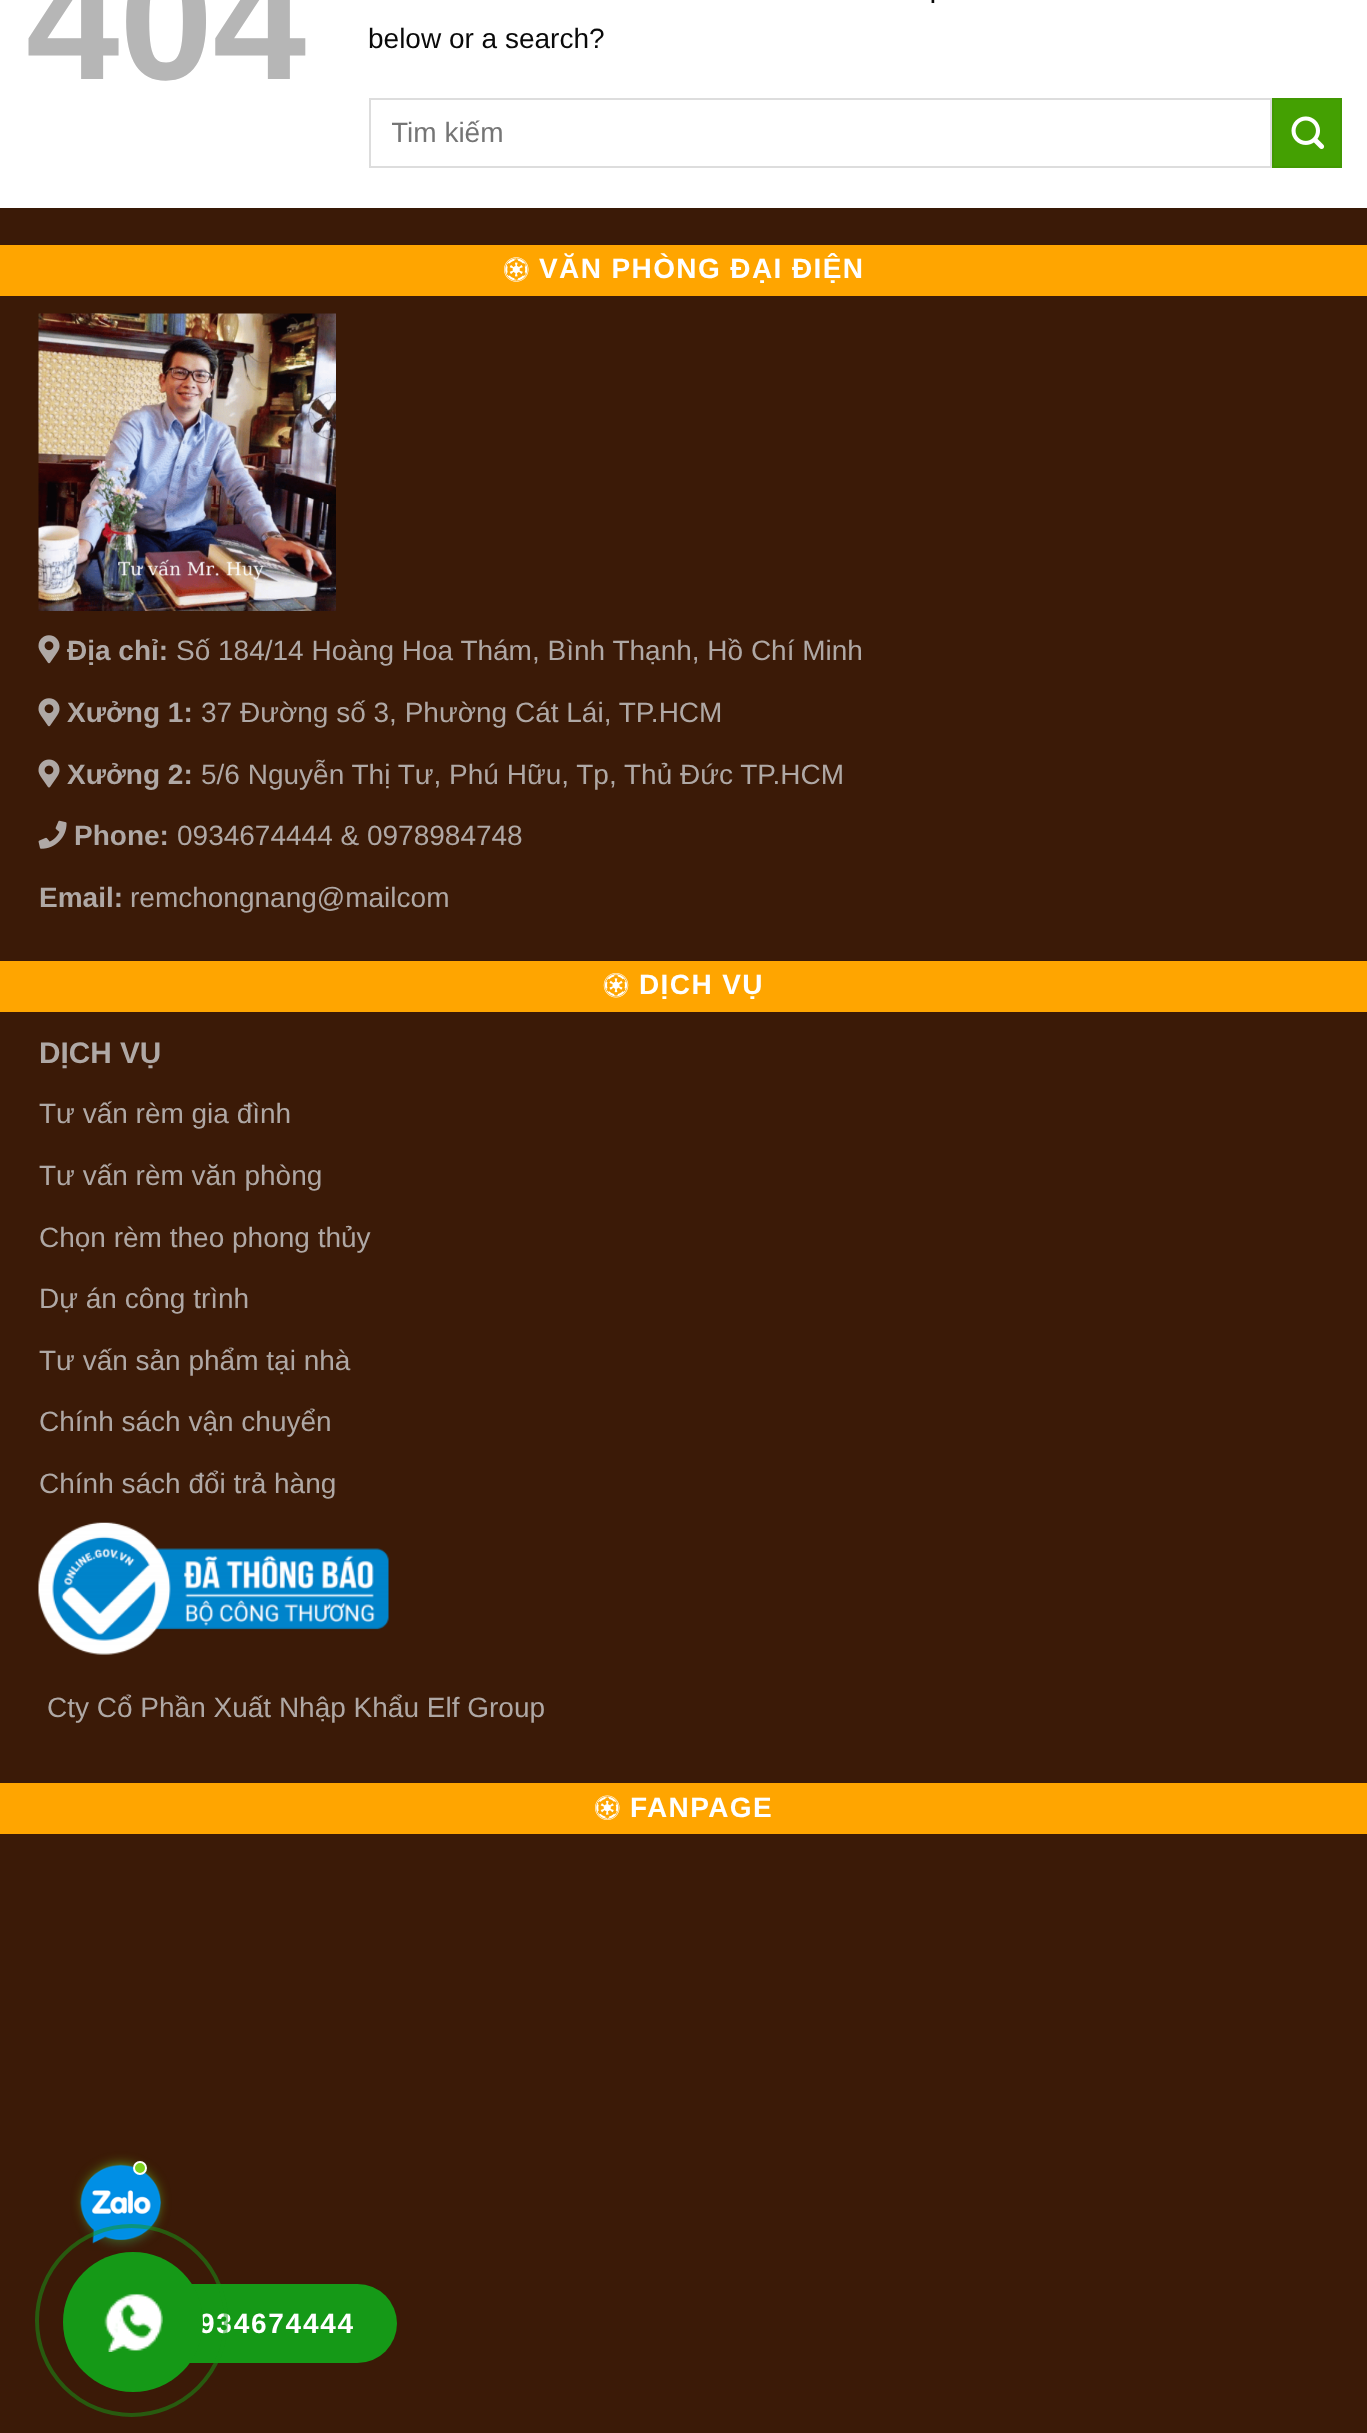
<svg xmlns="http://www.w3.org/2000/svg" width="1367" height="2433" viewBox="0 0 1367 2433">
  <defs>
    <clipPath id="clip1"><path d="M392 117h851v32H392z"/></clipPath>
  </defs>
  <rect width="100%" height="100%" fill="#fff"/>
  <path d="M370 99h901v68H370z" fill="none" stroke="#ddd" stroke-width="2"/>
  <path d="M1273 99h68v68H1273z" fill="#44a002" stroke="#419802" stroke-width="2"/>
  <image x="1291" y="116" width="34" height="33" href="img/1.png"/>
  <path d="M0 210h1367v2223H0z" fill="#3b1a07"/>
  <path d="M0 208h1367v2H0z" fill="#381907"/>
  <path d="M0 245h1367v51H0z" fill="#ffa500"/>
  <image x="504" y="257" width="25" height="25" href="img/2.png"/>
  <image x="38" y="313" width="298" height="298" href="img/3.png"/>
  <image x="38" y="635" width="22" height="29" href="img/4.png"/>
  <image x="38" y="698" width="22" height="29" href="img/4.png"/>
  <image x="38" y="759" width="22" height="29" href="img/5.png"/>
  <image x="38" y="820" width="29" height="29" href="img/6.png"/>
  <path d="M0 961h1367v51H0z" fill="#ffa500"/>
  <image x="603" y="973" width="26" height="25" href="img/7.png"/>
  <image x="38" y="1522" width="351" height="133" href="img/8.png"/>
  <path d="M0 1783h1367v51H0z" fill="#ffa500"/>
  <image x="595" y="1795" width="25" height="25" href="img/9.png"/>
  <rect x="86" y="2167" width="70" height="70" rx="35" fill="#7ed321" filter="blur(7px)"/>
  <image x="79" y="2164" width="83" height="87" href="img/10.png"/>
  <circle cx="140" cy="2168" r="6" fill="#7ed321" stroke="#fff" stroke-width="2"/>
  <rect x="109" y="2284" width="288" height="79" rx="39.5" fill="#159917"/>
  <text x="26" y="79" font-family="Liberation Sans" font-size="168" font-weight="bold" fill="#b6b6b6">404</text>
  <g font-family="Liberation Sans" font-size="28" fill="#0a0a0a">
    <text x="929" y="3">.</text>
    <text x="368" y="48">below or a search?</text>
  </g>
  <g clip-path="url(#clip1)">
    <text x="391" y="142" font-family="Liberation Sans" font-size="28" fill="#757575">Tim kiếm</text>
  </g>
  <text x="539" y="278" font-family="Liberation Sans" font-size="28" font-weight="bold" letter-spacing="1.4" fill="#fff">VĂN PHÒNG ĐẠI ĐIỆN</text>
  <text x="67" y="660" font-family="Liberation Sans" font-size="28" font-weight="bold" fill="#afa8a5">Địa chỉ:</text>
  <text x="176" y="660" font-family="Liberation Sans" font-size="28" fill="#afa8a5">Số 184/14 Hoàng Hoa Thám, Bình Thạnh, Hồ Chí Minh</text>
  <text x="67" y="722" font-family="Liberation Sans" font-size="28" font-weight="bold" fill="#afa8a5">Xưởng 1:</text>
  <text x="201" y="722" font-family="Liberation Sans" font-size="28" fill="#afa8a5">37 Đường số 3, Phường Cát Lái, TP.HCM</text>
  <text x="67" y="784" font-family="Liberation Sans" font-size="28" font-weight="bold" fill="#afa8a5">Xưởng 2:</text>
  <text x="201" y="784" font-family="Liberation Sans" font-size="28" fill="#afa8a5">5/6 Nguyễn Thị Tư, Phú Hữu, Tp, Thủ Đức TP.HCM</text>
  <text x="74" y="845" font-family="Liberation Sans" font-size="28" font-weight="bold" fill="#afa8a5">Phone:</text>
  <text x="177" y="845" font-family="Liberation Sans" font-size="28" fill="#afa8a5">0934674444 &amp; 0978984748</text>
  <text x="39" y="907" font-family="Liberation Sans" font-size="28" font-weight="bold" fill="#afa8a5">Email:</text>
  <text x="130" y="907" font-family="Liberation Sans" font-size="28" fill="#afa8a5">remchongnang@mailcom</text>
  <text x="639" y="994" font-family="Liberation Sans" font-size="28" font-weight="bold" letter-spacing="1.4" fill="#fff">DỊCH VỤ</text>
  <text x="39" y="1063" font-family="Liberation Sans" font-size="29.75" font-weight="bold" fill="#afa8a5">DỊCH VỤ</text>
  <g font-family="Liberation Sans" font-size="28" fill="#afa8a5">
    <text x="39" y="1123">Tư vấn rèm gia đình</text>
    <text x="39" y="1185">Tư vấn rèm văn phòng</text>
    <text x="39" y="1247">Chọn rèm theo phong thủy</text>
    <text x="39" y="1308">Dự án công trình</text>
    <text x="39" y="1370">Tư vấn sản phẩm tại nhà</text>
    <text x="39" y="1431">Chính sách vận chuyển</text>
    <text x="39" y="1493">Chính sách đổi trả hàng</text>
    <text x="47" y="1717">Cty Cổ Phần Xuất Nhập Khẩu Elf Group</text>
  </g>
  <text x="630" y="1817" font-family="Liberation Sans" font-size="28" font-weight="bold" letter-spacing="1.4" fill="#fff">FANPAGE</text>
  <text x="199" y="2333" font-family="Liberation Sans" font-size="28" font-weight="bold" letter-spacing="1.75" fill="#fff">934674444</text>
  <circle cx="131.5" cy="2320.5" r="94.5" fill="none" stroke="#15991780" stroke-width="4"/>
  <circle cx="133" cy="2322" r="70" fill="#159917"/>
  <image x="104" y="2293" width="59" height="59" href="img/11.png"/>
</svg>
